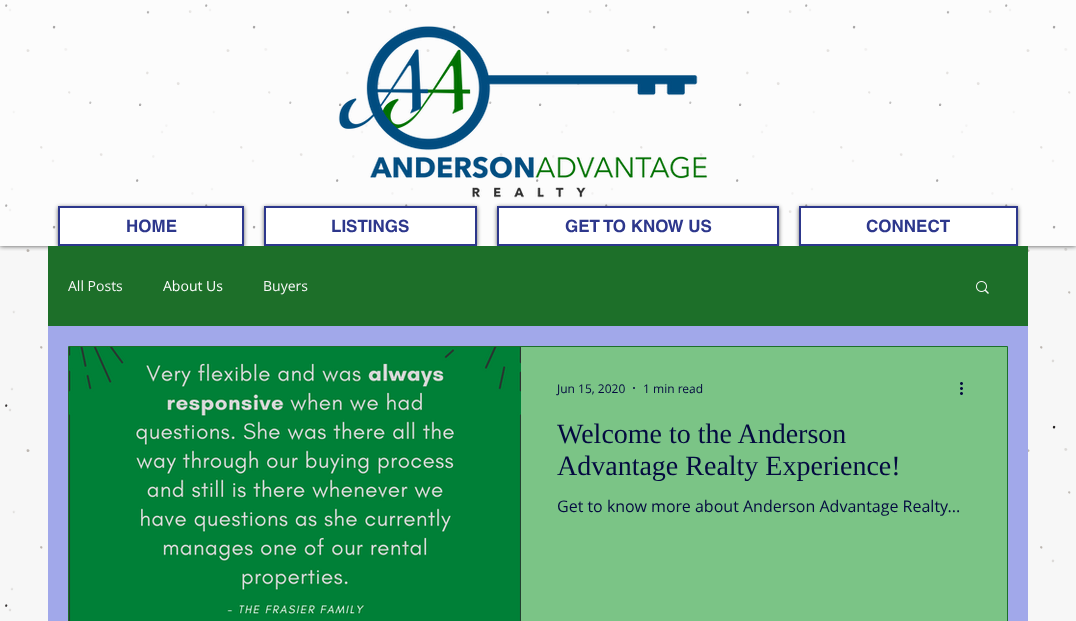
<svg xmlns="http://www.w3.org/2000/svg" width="1076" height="621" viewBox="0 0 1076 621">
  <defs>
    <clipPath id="clip1"><path d="M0 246h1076v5H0z"/></clipPath>
  </defs>
  <rect width="100%" height="100%" fill="#f7f7f7"/>
  <image x="5" y="4" width="1066" height="608" href="img/1.png"/>
  <g clip-path="url(#clip1)">
    <path d="M0 0h1076v246H0z" fill="#000000b3" filter="blur(2.5px)"/>
  </g>
  <path d="M0 0h1076v246H0z" fill="#ffffff99"/>
  <image x="338" y="26" width="370" height="172" href="img/2.png"/>
  <path d="M58 207h186v40H58z" fill="#00000099" filter="blur(2px)"/>
  <path d="M59 207h184v38H59z" fill="#fff" stroke="#2d378c" stroke-width="2"/>
  <path d="M264 207h213v40H264z" fill="#00000099" filter="blur(2px)"/>
  <path d="M265 207h211v38H265z" fill="#fff" stroke="#2d378c" stroke-width="2"/>
  <path d="M497 207h282v40H497z" fill="#00000099" filter="blur(2px)"/>
  <path d="M498 207h280v38H498z" fill="#fff" stroke="#2d378c" stroke-width="2"/>
  <path d="M799 207h219v40H799z" fill="#00000099" filter="blur(2px)"/>
  <path d="M800 207h217v38H800z" fill="#fff" stroke="#2d378c" stroke-width="2"/>
  <path d="M48 326h980v295H48z" fill="#a1a8ea"/>
  <path d="M48 246h980v80H48z" fill="#1d6f29"/>
  <image x="976" y="281" width="13" height="13" href="img/3.png"/>
  <path d="M68.5 346.5h939v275H68.5z" fill="none" stroke="#1d6f29"/>
  <image x="69" y="347" width="452" height="274" href="img/4.png"/>
  <path d="M521 347h486v274H521z" fill="#7bc486"/>
  <circle cx="634" cy="388" r="1" fill="#040a40"/>
  <image x="960" y="382" width="3" height="13" href="img/5.png"/>
  <g font-family="helvetica" font-size="17" font-weight="bold" fill="#2d378c">
    <text x="126" y="232">HOME</text>
    <text x="331" y="232">LISTINGS</text>
    <text x="565" y="232">GET TO KNOW US</text>
    <text x="866" y="232">CONNECT</text>
  </g>
  <text x="68" y="291" font-family="Open Sans" font-size="14" fill="#f7f7f7">All Posts</text>
  <text x="163" y="291" font-family="Open Sans" font-size="14" fill="#fff">About Us</text>
  <text x="263" y="291" font-family="Open Sans" font-size="14" fill="#f7f7f7">Buyers</text>
  <g font-family="Open Sans" font-size="12" fill="#040a40">
    <text x="557" y="393">Jun 15, 2020</text>
    <text x="643" y="393">1 min read</text>
  </g>
  <g font-family="Liberation Serif" font-size="28" fill="#040a40">
    <text x="557" y="443">Welcome to the Anderson</text>
    <text x="557" y="475">Advantage Realty Experience!</text>
  </g>
  <text x="557" y="512" font-family="Open Sans" font-size="16" fill="#040a40">Get to know more about Anderson Advantage Realty...</text>
</svg>
